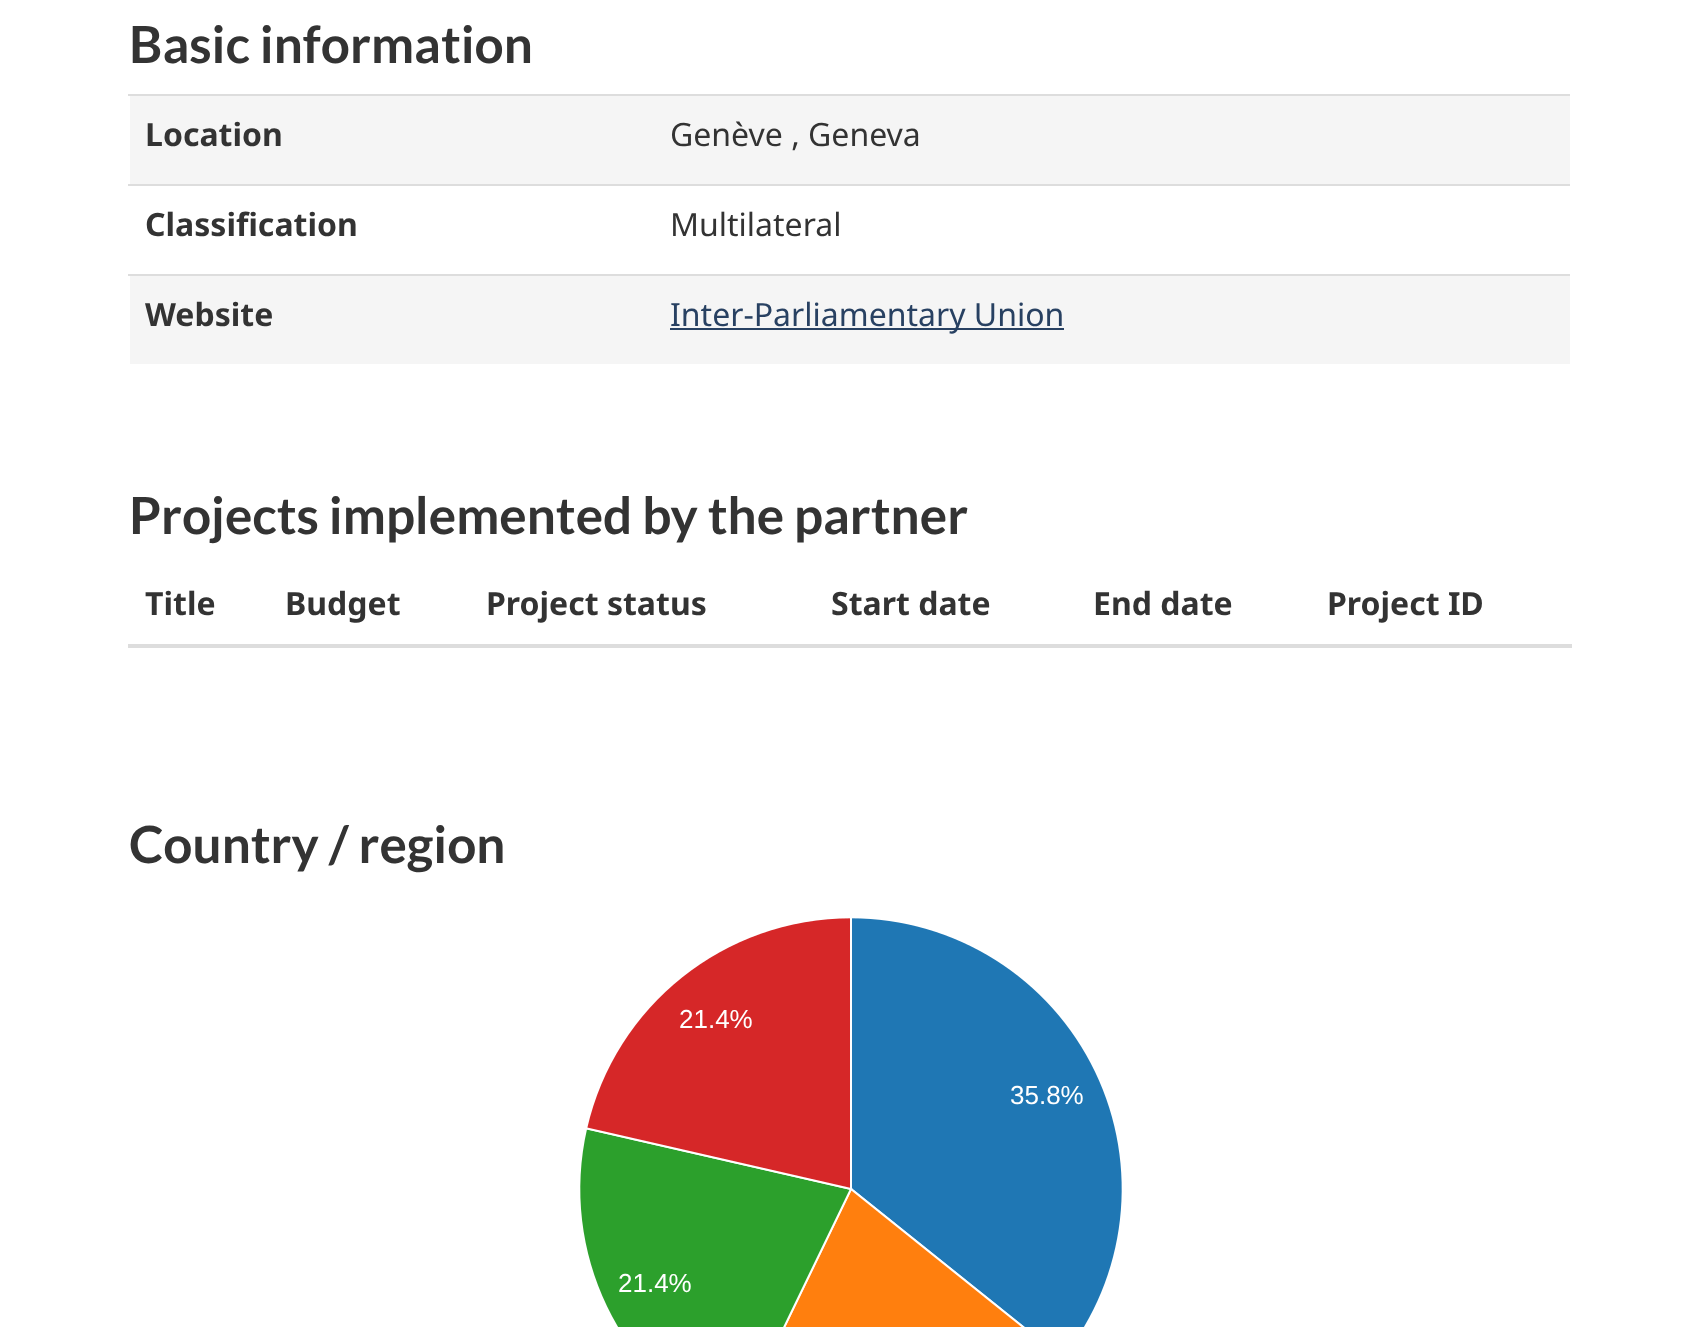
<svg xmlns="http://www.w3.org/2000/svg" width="1697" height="1327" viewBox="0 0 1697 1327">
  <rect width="100%" height="100%" fill="#fff"/>
  <path d="M130 96h1440v88H130z" fill="#f5f5f5"/>
  <path d="M128 94h1442v2H128z" fill="#ddd"/>
  <path d="M128 184h1442v2H128z" fill="#ddd"/>
  <path d="M130 276h1440v88H130z" fill="#f5f5f5"/>
  <path d="M128 274h1442v2H128z" fill="#ddd"/>
  <path d="M670 328h394v2H670z" fill="#284162"/>
  <path d="M128 644h1444v4H128z" fill="#ddd"/>
  <image x="580" y="918" width="542" height="409" href="img/1.png"/>
  <text x="129" y="63" font-family="Lato" font-size="51.25" font-weight="bold" fill="#333">Basic information</text>
  <text x="145" y="146" font-family="Noto Sans" font-size="32" font-weight="bold" fill="#333">Location</text>
  <text x="670" y="146" font-family="Noto Sans" font-size="32" fill="#333">Genève , Geneva</text>
  <text x="145" y="236" font-family="Noto Sans" font-size="32" font-weight="bold" fill="#333">Classification</text>
  <text x="670" y="236" font-family="Noto Sans" font-size="32" fill="#333">Multilateral</text>
  <text x="145" y="326" font-family="Noto Sans" font-size="32" font-weight="bold" fill="#333">Website</text>
  <text x="670" y="326" font-family="Noto Sans" font-size="32" fill="#284162">Inter-Parliamentary Union</text>
  <text x="129" y="534" font-family="Lato" font-size="51.25" font-weight="bold" fill="#333">Projects implemented by the partner</text>
  <g font-family="Noto Sans" font-size="32" font-weight="bold" fill="#333">
    <text x="145" y="615">Title</text>
    <text x="285" y="615">Budget</text>
    <text x="486" y="615">Project status</text>
    <text x="831" y="615">Start date</text>
    <text x="1093" y="615">End date</text>
    <text x="1327" y="615">Project ID</text>
  </g>
  <text x="129" y="863" font-family="Lato" font-size="51.25" font-weight="bold" fill="#333">Country / region</text>
  <g font-family="Liberation Sans" font-size="26" fill="#fff">
    <text x="679" y="1028">21.4%</text>
    <text x="1010" y="1104">35.8%</text>
    <text x="618" y="1292">21.4%</text>
  </g>
</svg>
